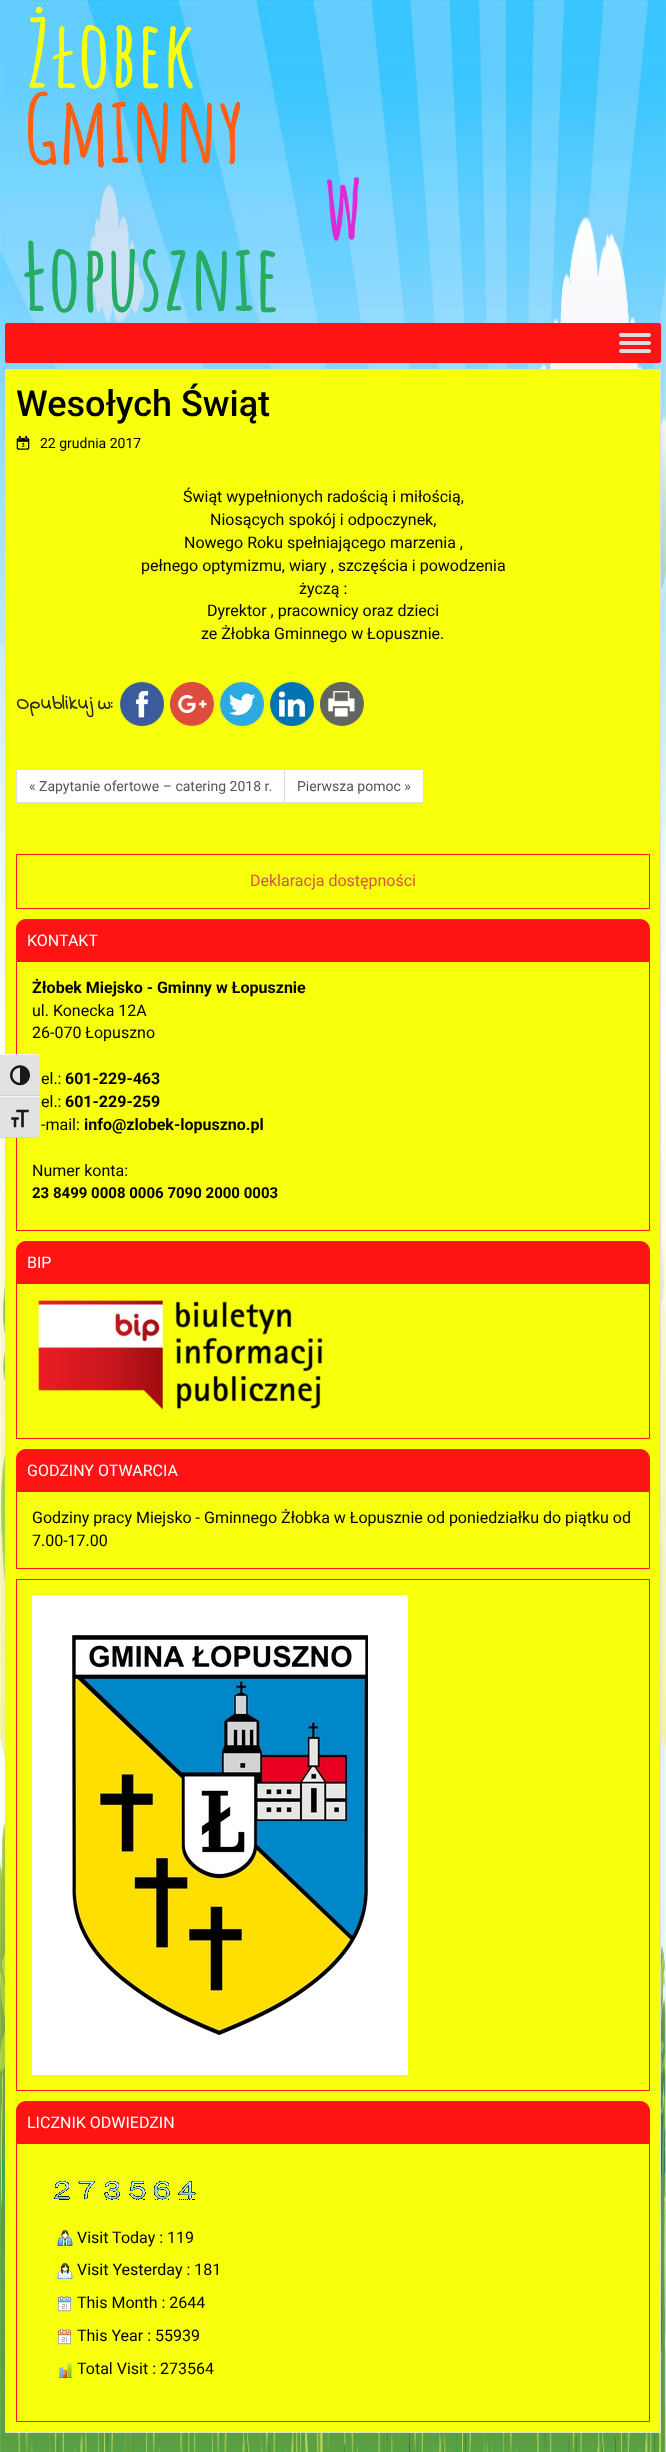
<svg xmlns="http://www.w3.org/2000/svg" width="666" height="2452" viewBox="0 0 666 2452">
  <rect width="100%" height="100%" fill="#fff"/>
  <image x="0" y="0" width="666" height="2452" href="img/1.png"/>
  <rect x="5" y="323" width="656" height="40" rx="2" fill="#ff1414"/>
  <rect x="619" y="333" width="32" height="4" rx="2" fill="#ddd"/>
  <rect x="619" y="341" width="32" height="4" rx="2" fill="#ddd"/>
  <rect x="619" y="349" width="32" height="4" rx="2" fill="#ddd"/>
  <path d="M5.5 369.5h655v2063H5.5z" fill="#f7ff0a" stroke="#dfe1cb"/>
  <image x="16" y="435" width="14" height="15" href="img/2.png"/>
  <image x="120" y="682" width="44" height="44" href="img/3.png"/>
  <image x="170" y="682" width="44" height="44" href="img/4.png"/>
  <image x="220" y="682" width="44" height="44" href="img/5.png"/>
  <image x="270" y="682" width="44" height="44" href="img/6.png"/>
  <image x="320" y="682" width="44" height="44" href="img/7.png"/>
  <path d="M16.5 769.5h268v33H16.5z" fill="#fff" stroke="#ddd"/>
  <path d="M284.5 769.5h139v33H284.5z" fill="#fff" stroke="#ddd"/>
  <path d="M16.5 854.5h633v54H16.5z" fill="none" stroke="#ff1414"/>
  <path d="M26 919H640C645.5 919 650 923.5 650 929V961H16V929C16 923.5 20.5 919 26 919Z" fill="#ff1414"/>
  <path d="M16.5 961.5h633v269H16.5z" fill="none" stroke="#ff1414"/>
  <path d="M26 1241H640C645.5 1241 650 1245.5 650 1251V1283H16V1251C16 1245.5 20.5 1241 26 1241Z" fill="#ff1414"/>
  <path d="M16.5 1283.5h633v155H16.5z" fill="none" stroke="#ff1414"/>
  <image x="38" y="1300" width="285" height="110" href="img/8.png"/>
  <path d="M26 1449H640C645.5 1449 650 1453.5 650 1459V1491H16V1459C16 1453.5 20.5 1449 26 1449Z" fill="#ff1414"/>
  <path d="M16.5 1491.5h633v77H16.5z" fill="none" stroke="#ff1414"/>
  <path d="M16.5 1579.5h633v511H16.5z" fill="none" stroke="#ff1414"/>
  <image x="32" y="1595" width="376" height="480" href="img/9.png"/>
  <path d="M26 2101H640C645.5 2101 650 2105.5 650 2111V2143H16V2111C16 2105.5 20.5 2101 26 2101Z" fill="#ff1414"/>
  <path d="M16.5 2143.5h633v278H16.5z" fill="none" stroke="#ff1414"/>
  <image x="54" y="2181" width="16" height="19" href="img/10.png"/>
  <image x="78" y="2181" width="17" height="18" href="img/11.png"/>
  <image x="104" y="2181" width="16" height="19" href="img/12.png"/>
  <image x="129" y="2181" width="17" height="19" href="img/13.png"/>
  <image x="154" y="2181" width="16" height="19" href="img/14.png"/>
  <image x="178" y="2181" width="18" height="19" href="img/15.png"/>
  <image x="57" y="2230" width="16" height="16" href="img/16.png"/>
  <image x="57" y="2263" width="16" height="16" href="img/17.png"/>
  <image x="58" y="2296" width="13" height="16" href="img/18.png"/>
  <image x="58" y="2329" width="13" height="16" href="img/19.png"/>
  <image x="59" y="2363" width="13" height="15" href="img/20.png"/>
  <path d="M0 1054H36C38 1054 40 1056 40 1058V1096H0Z" fill="#e2e2e2"/>
  <path d="M0 1054V1055H36C38 1055 40 1056 40 1058C40 1056 38 1054 36 1054Z" fill="#f5f5f5"/>
  <path d="M0 1095h40v1H0z" fill="#d2d2d2"/>
  <image x="10" y="1065" width="20" height="21" href="img/21.png"/>
  <path d="M0 1096H40V1134C40 1136 38 1138 36 1138H0Z" fill="#e2e2e2"/>
  <path d="M0 1096h40v1H0z" fill="#f5f5f5"/>
  <path d="M0 1137V1138H36C38 1138 40 1136 40 1134C40 1136 38 1137 36 1137Z" fill="#d2d2d2"/>
  <image x="11" y="1109" width="18" height="19" href="img/22.png"/>
  <text x="27" y="87" font-family="Amatic SC" font-size="92" font-weight="bold" fill="#f7ff0a">Żłobek</text>
  <text x="24" y="163" font-family="Amatic SC" font-size="92" font-weight="bold" fill="#ff5f14">Gminny</text>
  <text x="324" y="239" font-family="Amatic SC" font-size="92" font-weight="bold" fill="#de2bd8">w</text>
  <text x="22" y="311" font-family="Amatic SC" font-size="92" font-weight="bold" fill="#26ab64">Łopusznie</text>
  <text x="16" y="416" font-family="Roboto" font-size="36" font-weight="500" fill="#000">Wesołych Świąt</text>
  <text x="40" y="448" font-family="Roboto" font-size="14" fill="#000">22 grudnia 2017</text>
  <g font-family="Roboto" font-size="16" fill="#000">
    <text x="183" y="502">Świąt wypełnionych radością i miłością,</text>
    <text x="210" y="525">Niosących spokój i odpoczynek,</text>
    <text x="184" y="548">Nowego Roku spełniającego marzenia ,</text>
    <text x="141" y="571">pełnego optymizmu, wiary , szczęścia i powodzenia</text>
    <text x="299" y="594">życzą :</text>
    <text x="207" y="616">Dyrektor , pracownicy oraz dzieci</text>
    <text x="201" y="639">ze Żłobka Gminnego w Łopusznie.</text>
  </g>
  <text x="16" y="709" font-family="Indie Flower" font-size="20" font-weight="bold" fill="#272727">Opublikuj w:</text>
  <g font-family="Roboto" font-size="14" fill="#555">
    <text x="29" y="791">« Zapytanie ofertowe – catering 2018 r.</text>
    <text x="297" y="791">Pierwsza pomoc »</text>
  </g>
  <text x="250" y="886" font-family="Roboto" font-size="16" fill="#d9534f">Deklaracja dostępności</text>
  <text x="27" y="946" font-family="Roboto" font-size="16" fill="#fff">KONTAKT</text>
  <text x="32" y="993" font-family="Roboto" font-size="16" font-weight="bold" fill="#000">Żłobek Miejsko - Gminny w Łopusznie</text>
  <g font-family="Roboto" font-size="16" fill="#000">
    <text x="32" y="1016">ul. Konecka 12A</text>
    <text x="32" y="1038">26-070 Łopuszno</text>
    <text x="41" y="1084">el.:</text>
  </g>
  <text x="65" y="1084" font-family="Roboto" font-size="16" font-weight="bold" fill="#000">601-229-463</text>
  <text x="41" y="1107" font-family="Roboto" font-size="16" fill="#000">el.:</text>
  <text x="65" y="1107" font-family="Roboto" font-size="16" font-weight="bold" fill="#000">601-229-259</text>
  <text x="41" y="1130" font-family="Roboto" font-size="16" fill="#000">-mail:</text>
  <text x="84" y="1130" font-family="Roboto" font-size="16" font-weight="bold" fill="#000">info@zlobek-lopuszno.pl</text>
  <text x="32" y="1176" font-family="Roboto" font-size="16" fill="#000">Numer konta:</text>
  <text x="32" y="1198" font-family="Roboto" font-size="15" font-weight="bold" fill="#000">23 8499 0008 0006 7090 2000 0003</text>
  <g font-family="Roboto" font-size="16" fill="#fff">
    <text x="27" y="1268">BIP</text>
    <text x="27" y="1476">GODZINY OTWARCIA</text>
  </g>
  <g font-family="Roboto" font-size="16" fill="#000">
    <text x="32" y="1523">Godziny pracy Miejsko - Gminnego Żłobka w Łopusznie od poniedziałku do piątku od</text>
    <text x="32" y="1546">7.00-17.00</text>
  </g>
  <text x="27" y="2128" font-family="Roboto" font-size="16" fill="#fff">LICZNIK ODWIEDZIN</text>
  <g font-family="Roboto" font-size="16" fill="#000">
    <text x="77" y="2243">Visit Today : 119</text>
    <text x="77" y="2275">Visit Yesterday : 181</text>
    <text x="77" y="2308">This Month : 2644</text>
    <text x="77" y="2341">This Year : 55939</text>
    <text x="77" y="2374">Total Visit : 273564</text>
  </g>
</svg>
